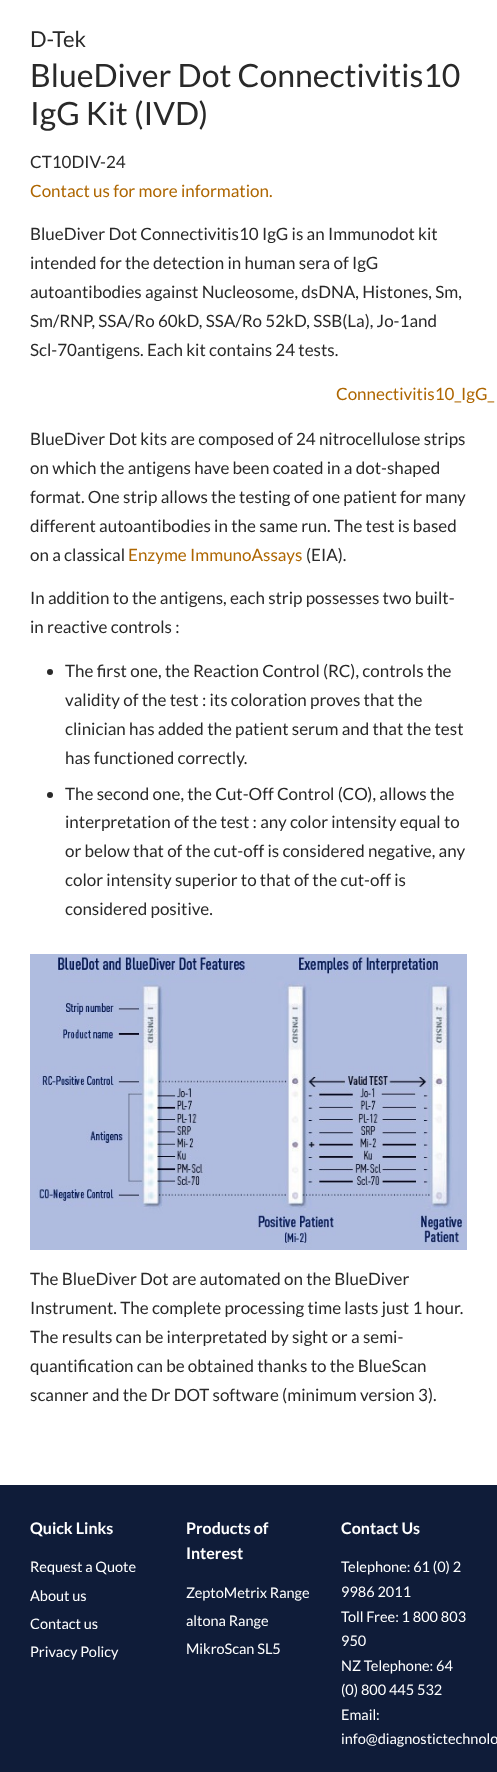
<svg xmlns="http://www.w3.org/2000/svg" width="497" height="1772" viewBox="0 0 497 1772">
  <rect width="100%" height="100%" fill="#fff"/>
  <circle cx="50" cy="672" r="3" fill="#292929"/>
  <circle cx="50" cy="795" r="3" fill="#292929"/>
  <image x="30" y="954" width="437" height="296" href="img/1.png"/>
  <path d="M0 1485h497v287H0z" fill="#0f1c39"/>
  <text x="30" y="47" font-family="Lato" font-size="22" fill="#292929">D-Tek</text>
  <g font-family="Lato" font-size="32" fill="#292929">
    <text x="30" y="87">BlueDiver Dot Connectivitis10</text>
    <text x="30" y="125">IgG Kit (IVD)</text>
  </g>
  <text x="30" y="168" font-family="Lato" font-size="17" fill="#292929">CT10DIV-24</text>
  <text x="30" y="197" font-family="Lato" font-size="17" fill="#ae6600">Contact us for more information.</text>
  <g font-family="Lato" font-size="17" fill="#292929">
    <text x="30" y="240">BlueDiver Dot Connectivitis10 IgG is an Immunodot kit</text>
    <text x="30" y="269">intended for the detection in human sera of IgG</text>
    <text x="30" y="298">autoantibodies against Nucleosome, dsDNA, Histones, Sm,</text>
    <text x="30" y="327">Sm/RNP, SSA/Ro 60kD, SSA/Ro 52kD, SSB(La), Jo-1and</text>
    <text x="30" y="356">Scl-70antigens. Each kit contains 24 tests.</text>
  </g>
  <text x="336" y="400" font-family="Lato" font-size="17" fill="#ae6600">Connectivitis10_IgG_</text>
  <g font-family="Lato" font-size="17" fill="#292929">
    <text x="30" y="445">BlueDiver Dot kits are composed of 24 nitrocellulose strips</text>
    <text x="30" y="474">on which the antigens have been coated in a dot-shaped</text>
    <text x="30" y="503">format. One strip allows the testing of one patient for many</text>
    <text x="30" y="532">different autoantibodies in the same run. The test is based</text>
    <text x="30" y="561">on a classical</text>
  </g>
  <text x="128" y="561" font-family="Lato" font-size="17" fill="#ae6600">Enzyme ImmunoAssays</text>
  <g font-family="Lato" font-size="17" fill="#292929">
    <text x="306" y="561">(EIA).</text>
    <text x="30" y="604">In addition to the antigens, each strip possesses two built-</text>
    <text x="30" y="633">in reactive controls :</text>
    <text x="65" y="677">The first one, the Reaction Control (RC), controls the</text>
    <text x="65" y="706">validity of the test : its coloration proves that the</text>
    <text x="65" y="735">clinician has added the patient serum and that the test</text>
    <text x="65" y="764">has functioned correctly.</text>
    <text x="65" y="800">The second one, the Cut-Off Control (CO), allows the</text>
    <text x="65" y="828">interpretation of the test : any color intensity equal to</text>
    <text x="65" y="857">or below that of the cut-off is considered negative, any</text>
    <text x="65" y="886">color intensity superior to that of the cut-off is</text>
    <text x="65" y="915">considered positive.</text>
    <text x="30" y="1285">The BlueDiver Dot are automated on the BlueDiver</text>
    <text x="30" y="1314">Instrument. The complete processing time lasts just 1 hour.</text>
    <text x="30" y="1343">The results can be interpretated by sight or a semi-</text>
    <text x="30" y="1372">quantification can be obtained thanks to the BlueScan</text>
    <text x="30" y="1401">scanner and the Dr DOT software (minimum version 3).</text>
  </g>
  <text x="30" y="1534" font-family="Lato" font-size="16" font-weight="bold" fill="#fff">Quick Links</text>
  <g font-family="Lato" font-size="14.5" fill="#fff">
    <text x="30" y="1572">Request a Quote</text>
    <text x="30" y="1601">About us</text>
    <text x="30" y="1629">Contact us</text>
    <text x="30" y="1657">Privacy Policy</text>
  </g>
  <g font-family="Lato" font-size="16" font-weight="bold" fill="#fff">
    <text x="186" y="1534">Products of</text>
    <text x="186" y="1559">Interest</text>
  </g>
  <g font-family="Lato" font-size="14.5" fill="#fff">
    <text x="186" y="1598">ZeptoMetrix Range</text>
    <text x="186" y="1626">altona Range</text>
    <text x="186" y="1654">MikroScan SL5</text>
  </g>
  <text x="341" y="1534" font-family="Lato" font-size="16" font-weight="bold" fill="#fff">Contact Us</text>
  <g font-family="Lato" font-size="14.5" fill="#fff">
    <text x="341" y="1572">Telephone: 61 (0) 2</text>
    <text x="341" y="1597">9986 2011</text>
    <text x="341" y="1622">Toll Free: 1 800 803</text>
    <text x="341" y="1646">950</text>
    <text x="341" y="1671">NZ Telephone: 64</text>
    <text x="341" y="1695">(0) 800 445 532</text>
    <text x="341" y="1720">Email:</text>
    <text x="341" y="1744">info@diagnostictechnolo</text>
  </g>
</svg>
